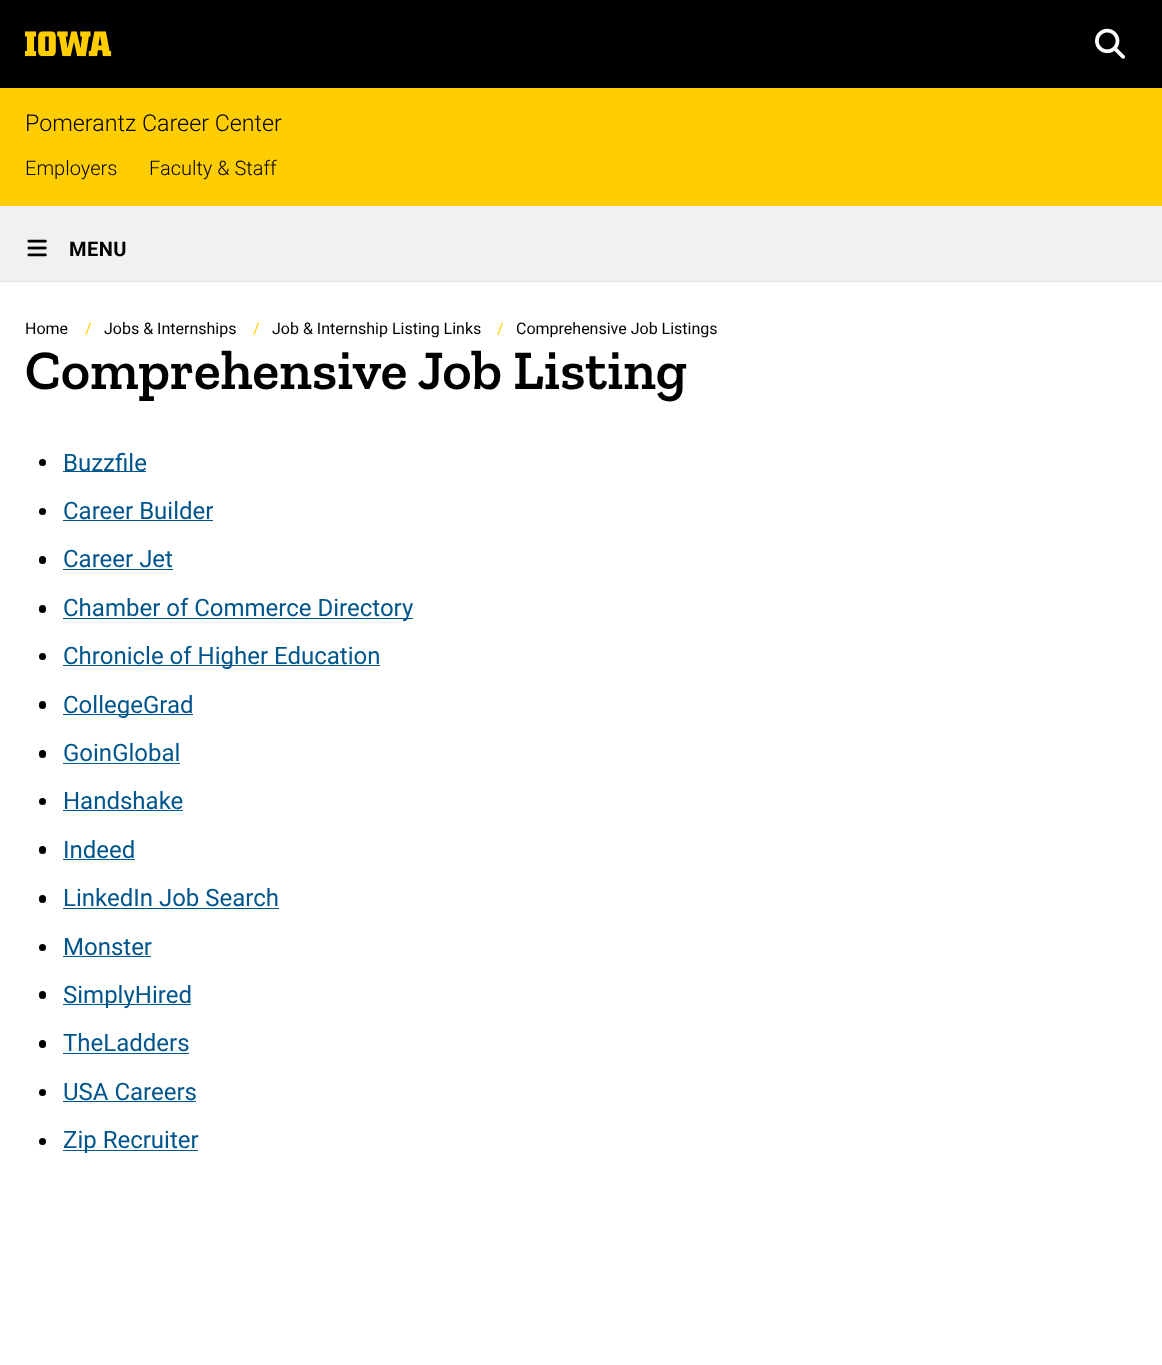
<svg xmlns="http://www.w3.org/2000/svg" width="1162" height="1365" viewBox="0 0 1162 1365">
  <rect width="100%" height="100%" fill="#fff"/>
  <path d="M0 0h1162v88H0z" fill="#000"/>
  <image x="25" y="31" width="87" height="26" href="img/1.png"/>
  <image x="1095" y="28" width="30" height="31" href="img/2.png"/>
  <path d="M0 88h1162v118H0z" fill="#ffcd00"/>
  <path d="M0 281h1162v1H0z" fill="#e6e5e5"/>
  <path d="M0 206h1162v75H0z" fill="#f1f1f1"/>
  <image x="27" y="239" width="20" height="18" href="img/3.png"/>
  <circle cx="42.5" cy="462.5" r="3.5" fill="#000"/>
  <path d="M63 471h83v1H63z" fill="#00558c"/>
  <circle cx="42.5" cy="511.5" r="3.5" fill="#000"/>
  <path d="M63 520h150v1H63z" fill="#00558c"/>
  <rect x="39" y="556" width="7" height="8" rx="3.5" fill="#000"/>
  <path d="M63 569h110v1H63z" fill="#00558c"/>
  <rect x="39" y="605" width="7" height="8" rx="3.5" fill="#000"/>
  <path d="M63 618h350v1H63z" fill="#00558c"/>
  <circle cx="42.5" cy="656.5" r="3.5" fill="#000"/>
  <path d="M63 665h317v1H63z" fill="#00558c"/>
  <rect x="39" y="701" width="7" height="8" rx="3.5" fill="#000"/>
  <path d="M63 714h130v1H63z" fill="#00558c"/>
  <rect x="39" y="750" width="7" height="8" rx="3.5" fill="#000"/>
  <path d="M63 763h117v1H63z" fill="#00558c"/>
  <circle cx="42.5" cy="801.5" r="3.5" fill="#000"/>
  <path d="M63 810h120v1H63z" fill="#00558c"/>
  <rect x="39" y="846" width="7" height="8" rx="3.5" fill="#000"/>
  <path d="M63 859h72v1H63z" fill="#00558c"/>
  <rect x="39" y="895" width="7" height="8" rx="3.5" fill="#000"/>
  <path d="M63 908h216v1H63z" fill="#00558c"/>
  <circle cx="42.5" cy="947.5" r="3.5" fill="#000"/>
  <path d="M63 956h88v1H63z" fill="#00558c"/>
  <rect x="39" y="991" width="7" height="8" rx="3.5" fill="#000"/>
  <path d="M63 1004h128v1H63z" fill="#00558c"/>
  <rect x="39" y="1040" width="7" height="8" rx="3.5" fill="#000"/>
  <path d="M63 1053h126v1H63z" fill="#00558c"/>
  <circle cx="42.5" cy="1092.5" r="3.5" fill="#000"/>
  <path d="M63 1101h133v1H63z" fill="#00558c"/>
  <circle cx="42.5" cy="1141.5" r="3.5" fill="#000"/>
  <path d="M63 1150h135v1H63z" fill="#00558c"/>
  <text x="25" y="131" font-family="Roboto" font-size="23.25" font-weight="300" fill="#000">Pomerantz Career Center</text>
  <g font-family="Roboto" font-size="20" font-weight="300" fill="#000">
    <text x="25" y="175">Employers</text>
    <text x="149" y="175">Faculty &amp; Staff</text>
  </g>
  <text x="69" y="256" font-family="Roboto" font-size="20" font-weight="bold" letter-spacing="0.5" fill="#000">MENU</text>
  <text x="25" y="334" font-family="Roboto" font-size="16" fill="#000">Home</text>
  <text x="85" y="334" font-family="Roboto" font-size="16" fill="#ffcd00">/</text>
  <text x="104" y="334" font-family="Roboto" font-size="16" fill="#000">Jobs &amp; Internships</text>
  <text x="253" y="334" font-family="Roboto" font-size="16" fill="#ffcd00">/</text>
  <text x="272" y="334" font-family="Roboto" font-size="16" fill="#000">Job &amp; Internship Listing Links</text>
  <text x="497" y="334" font-family="Roboto" font-size="16" fill="#ffcd00">/</text>
  <text x="516" y="334" font-family="Roboto" font-size="16" fill="#000">Comprehensive Job Listings</text>
  <text x="25" y="389" font-family="Zilla Slab" font-size="55.75" font-weight="600" fill="#000">Comprehensive Job Listing</text>
  <g font-family="Roboto" font-size="24" fill="#00558c">
    <text x="63" y="471">Buzzfile</text>
    <text x="63" y="519">Career Builder</text>
    <text x="63" y="567">Career Jet</text>
    <text x="63" y="616">Chamber of Commerce Directory</text>
    <text x="63" y="664">Chronicle of Higher Education</text>
    <text x="63" y="713">CollegeGrad</text>
    <text x="63" y="761">GoinGlobal</text>
    <text x="63" y="809">Handshake</text>
    <text x="63" y="858">Indeed</text>
    <text x="63" y="906">LinkedIn Job Search</text>
    <text x="63" y="955">Monster</text>
    <text x="63" y="1003">SimplyHired</text>
    <text x="63" y="1051">TheLadders</text>
    <text x="63" y="1100">USA Careers</text>
    <text x="63" y="1148">Zip Recruiter</text>
  </g>
</svg>
